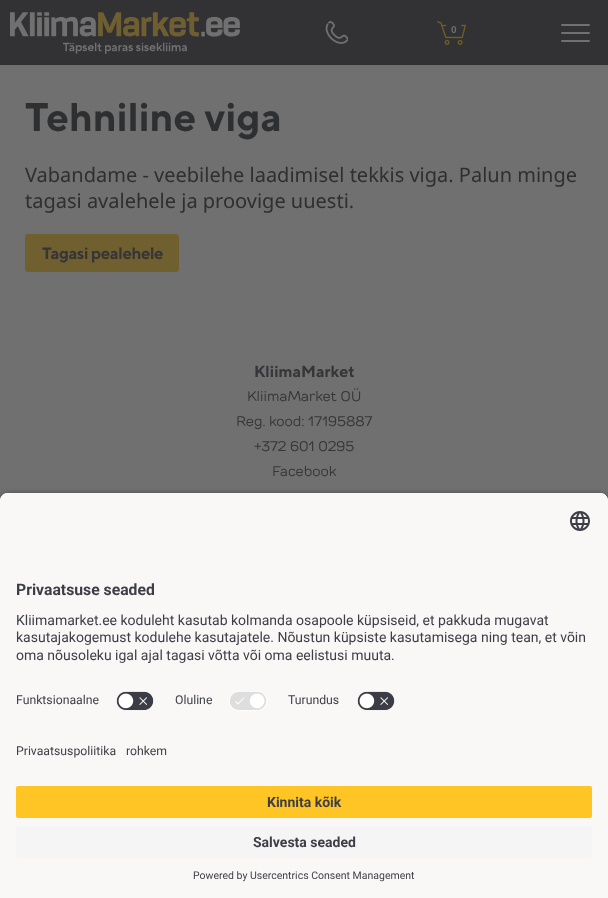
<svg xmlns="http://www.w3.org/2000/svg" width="608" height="898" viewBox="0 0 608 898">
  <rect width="100%" height="100%" fill="#707070"/>
  <path d="M0 0h608v65H0z" fill="#323235"/>
  <image x="10" y="12" width="230" height="42" href="img/1.png"/>
  <image x="325" y="21" width="23" height="23" href="img/2.png"/>
  <path d="M562 25H589M562 33H589M562 41H589" fill="none" stroke="#707070" stroke-width="2" stroke-linecap="round"/>
  <rect x="25" y="234" width="154" height="38" rx="3" fill="#705f2f"/>
  <rect y="496" width="608" height="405" rx="8" fill="#000000cc" filter="blur(3.5px)"/>
  <path d="M8 493H600C604.5 493 608 496.5 608 501V728H0V501C0 496.5 3.5 493 8 493Z" fill="#faf8f7"/>
  <path d="M8 493H600C604.5 493 608 496.5 608 501V684H0V501C0 496.5 3.5 493 8 493Z" fill="#faf8f7"/>
  <image x="570" y="511" width="20" height="20" href="img/4.png"/>
  <image x="116" y="691" width="38" height="20" href="img/5.png"/>
  <image x="229" y="691" width="38" height="20" href="img/6.png"/>
  <image x="357" y="691" width="38" height="20" href="img/5.png"/>
  <path d="M0 728h608v170H0z" fill="#faf8f7"/>
  <rect x="16" y="786" width="576" height="32" rx="2" fill="#fec524"/>
  <rect x="16" y="826" width="576" height="32" rx="2" fill="#f5f5f5"/>
  <text x="451" y="33" font-family="Liberation Sans" font-size="10" font-weight="bold" fill="#707070">0</text>
  <image x="437" y="21" width="29" height="24" href="img/3.png"/>
  <text x="25" y="131" font-family="'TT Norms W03'" font-size="40" font-weight="bold" fill="#2e2f30">Tehniline viga</text>
  <g font-family="Noto Sans" font-size="20" fill="#2e2f30">
    <text x="25" y="182">Vabandame - veebilehe laadimisel tekkis viga. Palun minge</text>
    <text x="25" y="208">tagasi avalehele ja proovige uuesti.</text>
  </g>
  <text x="42" y="259" font-family="'TT Norms W03'" font-size="16.5" font-weight="bold" letter-spacing="-0.4" fill="#363639">Tagasi pealehele</text>
  <text x="254" y="377" font-family="'TT Norms W03'" font-size="16" font-weight="bold" fill="#363639">KliimaMarket</text>
  <g font-family="'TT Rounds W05'" font-size="14" fill="#363639">
    <text x="247" y="401">KliimaMarket OÜ</text>
    <text x="236" y="426">Reg. kood: 17195887</text>
    <text x="254" y="451">+372 601 0295</text>
    <text x="272" y="476">Facebook</text>
  </g>
  <text x="16" y="595" font-family="Roboto" font-size="15.75" font-weight="bold" fill="#3e3e47">Privaatsuse seaded</text>
  <g font-family="Roboto" font-size="14" fill="#3e3e47">
    <text x="16" y="625">Kliimamarket.ee koduleht kasutab kolmanda osapoole küpsiseid, et pakkuda mugavat</text>
    <text x="16" y="642">kasutajakogemust kodulehe kasutajatele. Nõustun küpsiste kasutamisega ning tean, et võin</text>
    <text x="16" y="660">oma nõusoleku igal ajal tagasi võtta või oma eelistusi muuta.</text>
  </g>
  <g font-family="Roboto" font-size="12.25" fill="#3e3e47">
    <text x="16" y="704">Funktsionaalne</text>
    <text x="175" y="704">Oluline</text>
    <text x="288" y="704">Turundus</text>
    <text x="16" y="755">Privaatsuspoliitika</text>
    <text x="126" y="755">rohkem</text>
  </g>
  <g font-family="Roboto" font-size="14" font-weight="bold" fill="#3e3e47">
    <text x="267" y="807">Kinnita kõik</text>
    <text x="253" y="847">Salvesta seaded</text>
  </g>
  <text x="193" y="879" font-family="Roboto" font-size="10.5" fill="#3e3e47">Powered by Usercentrics Consent Management</text>
</svg>
